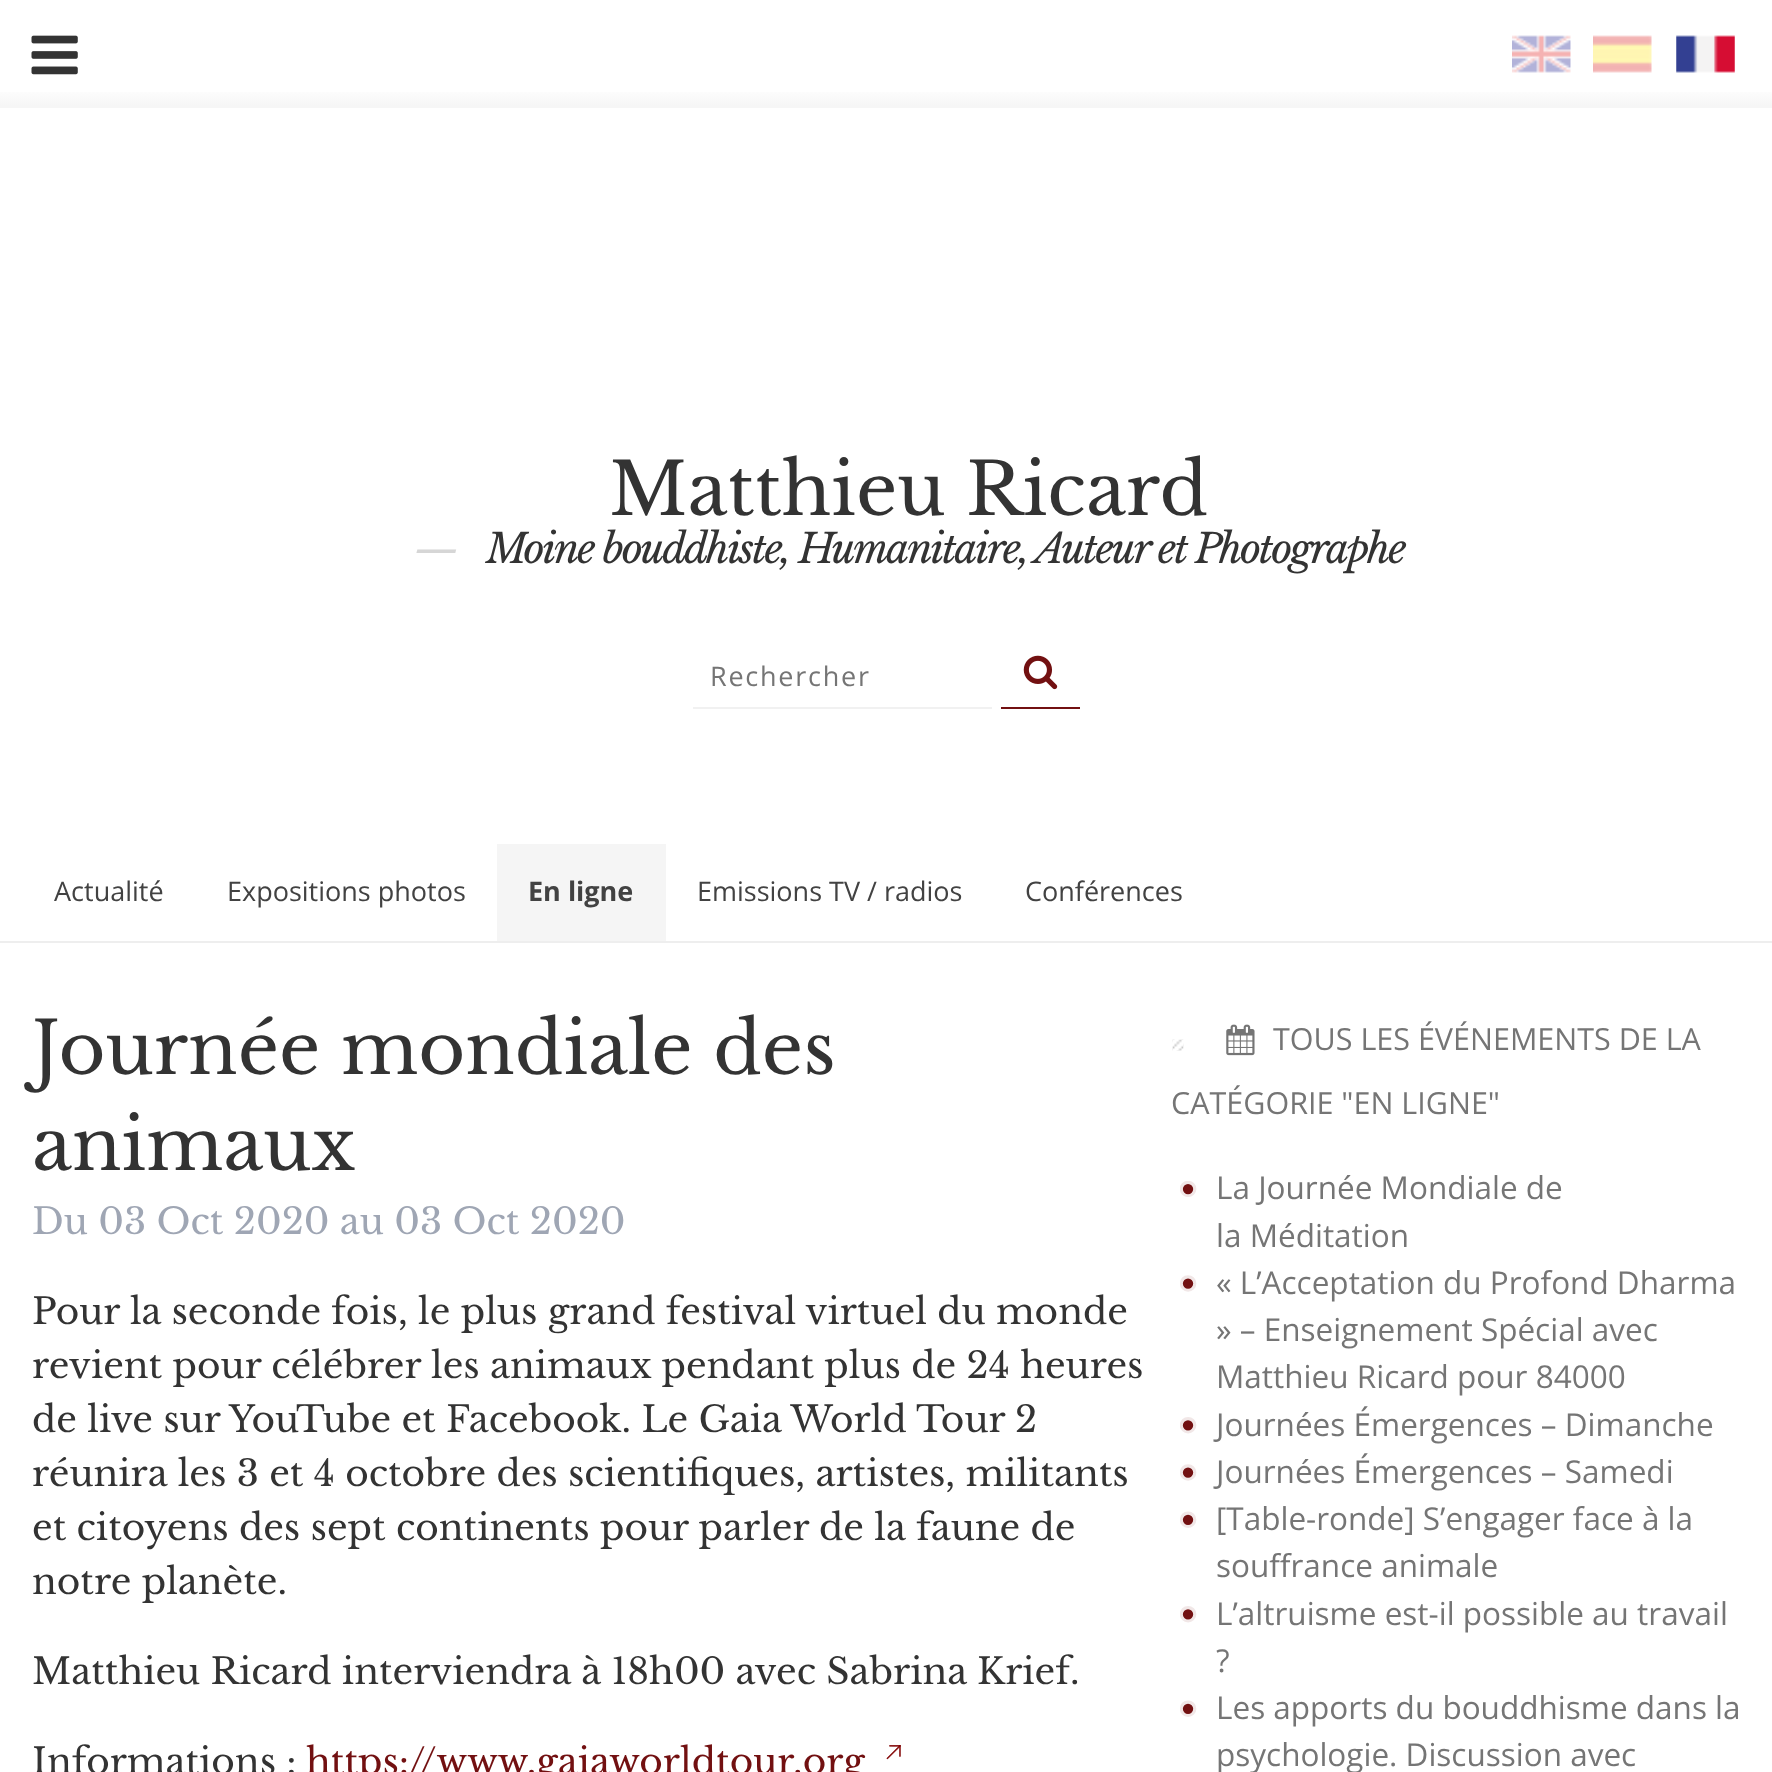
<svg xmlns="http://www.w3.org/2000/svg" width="1772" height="1772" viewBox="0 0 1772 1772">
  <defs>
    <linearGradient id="g1" gradientUnits="userSpaceOnUse" x1="887" y1="108" x2="887" y2="86"><stop offset="0.1" stop-color="#f6f6f6"/><stop offset="1" stop-color="#fff"/></linearGradient>
  </defs>
  <rect width="100%" height="100%" fill="#fff"/>
  <image x="1512" y="35" width="59" height="38" href="img/1.png"/>
  <image x="1593" y="35" width="59" height="38" href="img/2.png"/>
  <image x="1676" y="35" width="59" height="38" href="img/3.png"/>
  <path d="M0 92h1772v16H0z" fill="url(#g1)"/>
  <image x="31" y="35" width="47" height="40" href="img/4.png"/>
  <path d="M693 707h299v2H693z" fill="#f1f1f1"/>
  <path d="M1001 707h79v2H1001z" fill="#721011"/>
  <image x="1023" y="655" width="35" height="35" href="img/5.png"/>
  <path d="M0 941h1772v2H0z" fill="#eee"/>
  <path d="M497 844h169v97H497z" fill="#f5f5f5"/>
  <image x="886" y="1745" width="15" height="15" href="img/6.png"/>
  <image x="1172" y="1039" width="12" height="12" href="img/7.png"/>
  <image x="1226" y="1024" width="29" height="32" href="img/8.png"/>
  <image x="1180" y="1181" width="17" height="16" href="img/9.png"/>
  <image x="1180" y="1275" width="17" height="17" href="img/10.png"/>
  <image x="1180" y="1417" width="17" height="17" href="img/11.png"/>
  <image x="1180" y="1464" width="17" height="17" href="img/10.png"/>
  <image x="1180" y="1511" width="17" height="17" href="img/12.png"/>
  <image x="1180" y="1606" width="17" height="17" href="img/11.png"/>
  <image x="1180" y="1700" width="17" height="17" href="img/13.png"/>
  <text x="609" y="515" font-family="Libre Baskerville" font-size="72" fill="#333">Matthieu Ricard</text>
  <text x="414" y="563" font-family="Libre Baskerville" font-size="40.5" font-style="italic" letter-spacing="-2.25" fill="#d6d6d6">—</text>
  <text x="486" y="563" font-family="Libre Baskerville" font-size="40.5" font-style="italic" letter-spacing="-2.25" fill="#333">Moine bouddhiste, Humanitaire, Auteur et Photographe</text>
  <text x="710" y="686" font-family="Open Sans" font-size="27" letter-spacing="1.75" fill="#757575">Rechercher</text>
  <g font-family="Open Sans" font-size="27" fill="#424242">
    <text x="54" y="901">Actualité</text>
    <text x="227" y="901">Expositions photos</text>
  </g>
  <text x="528" y="901" font-family="Open Sans" font-size="27" font-weight="bold" fill="#424242">En ligne</text>
  <g font-family="Open Sans" font-size="27" fill="#424242">
    <text x="697" y="901">Emissions TV / radios</text>
    <text x="1025" y="901">Conférences</text>
  </g>
  <g font-family="Libre Baskerville" font-size="72" fill="#333">
    <text x="32" y="1074">Journée mondiale des</text>
    <text x="32" y="1170">animaux</text>
  </g>
  <text x="32" y="1234" font-family="Libre Baskerville" font-size="36" fill="#9fa6b4">Du 03 Oct 2020 au 03 Oct 2020</text>
  <g font-family="Libre Baskerville" font-size="36" fill="#333">
    <text x="32" y="1324">Pour la seconde fois, le plus grand festival virtuel du monde</text>
    <text x="32" y="1378">revient pour célébrer les animaux pendant plus de 24 heures</text>
    <text x="32" y="1432">de live sur YouTube et Facebook. Le Gaia World Tour 2</text>
    <text x="32" y="1486">réunira les 3 et 4 octobre des scientifiques, artistes, militants</text>
    <text x="32" y="1540">et citoyens des sept continents pour parler de la faune de</text>
    <text x="32" y="1594">notre planète.</text>
    <text x="32" y="1684">Matthieu Ricard interviendra à 18h00 avec Sabrina Krief.</text>
    <text x="32" y="1774">Informations :</text>
  </g>
  <text x="306" y="1774" font-family="Libre Baskerville" font-size="36" fill="#721011">https://www.gaiaworldtour.org</text>
  <g font-family="Open Sans" font-size="30.5" fill="#757575">
    <text x="1273" y="1050">TOUS LES ÉVÉNEMENTS DE LA</text>
    <text x="1171" y="1114">CATÉGORIE "EN LIGNE"</text>
  </g>
  <g font-family="Open Sans" font-size="31.5" fill="#757575">
    <text x="1216" y="1199">La Journée Mondiale de</text>
    <text x="1216" y="1247">la Méditation</text>
    <text x="1216" y="1294">« L’Acceptation du Profond Dharma</text>
    <text x="1216" y="1341">» – Enseignement Spécial avec</text>
    <text x="1216" y="1388">Matthieu Ricard pour 84000</text>
    <text x="1216" y="1436">Journées Émergences – Dimanche</text>
    <text x="1216" y="1483">Journées Émergences – Samedi</text>
    <text x="1216" y="1530">[Table-ronde] S’engager face à la</text>
    <text x="1216" y="1577">souffrance animale</text>
    <text x="1216" y="1625">L’altruisme est-il possible au travail</text>
    <text x="1216" y="1672">?</text>
    <text x="1216" y="1719">Les apports du bouddhisme dans la</text>
    <text x="1216" y="1766">psychologie. Discussion avec</text>
  </g>
</svg>
